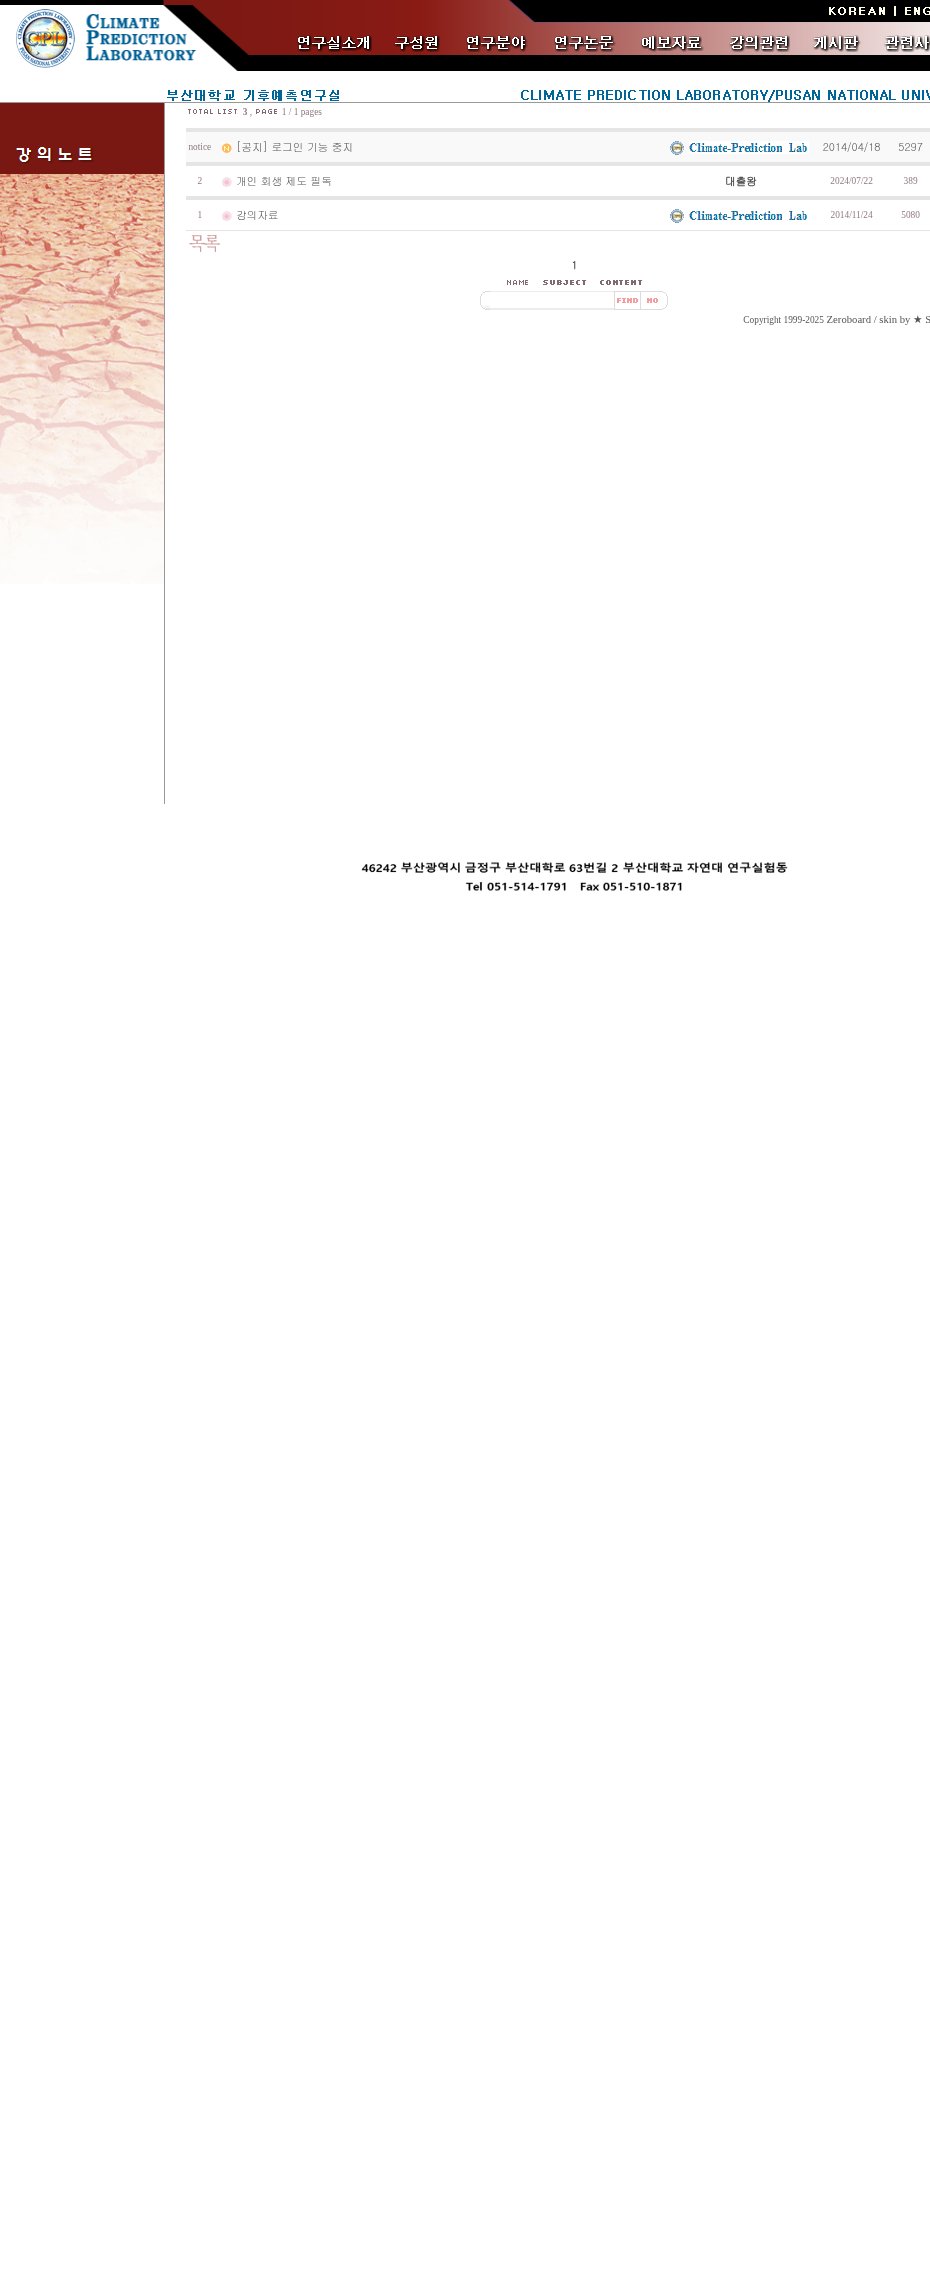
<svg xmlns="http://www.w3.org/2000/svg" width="930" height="2286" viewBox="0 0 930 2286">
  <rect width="100%" height="100%" fill="#fff"/>
  <image x="0" y="0" width="930" height="71" href="img/1.png"/>
  <image x="16" y="9" width="59" height="59" href="img/2.png"/>
  <image x="829" y="7" width="56" height="8" href="img/3.png"/>
  <path d="M894 6h2v10H894z" fill="#ffffe8"/>
  <image x="905" y="7" width="25" height="8" href="img/4.png"/>
  <image x="297" y="35" width="75" height="17" href="img/5.png"/>
  <image x="394" y="35" width="46" height="17" href="img/6.png"/>
  <image x="466" y="35" width="62" height="17" href="img/7.png"/>
  <image x="554" y="35" width="62" height="17" href="img/8.png"/>
  <image x="641" y="35" width="63" height="17" href="img/9.png"/>
  <image x="729" y="35" width="61" height="17" href="img/10.png"/>
  <image x="813" y="35" width="48" height="17" href="img/11.png"/>
  <image x="884" y="35" width="46" height="17" href="img/12.png"/>
  <image x="167" y="90" width="763" height="12" href="img/13.png"/>
  <path d="M0 102h930v1H0z" fill="#999"/>
  <image x="0" y="103" width="164" height="71" href="img/14.png"/>
  <image x="0" y="174" width="164" height="410" href="img/15.png"/>
  <path d="M164 103h1v701H164z" fill="#999"/>
  <image x="186" y="108" width="744" height="217" href="img/16.png"/>
  <image x="361" y="862" width="427" height="29" href="img/17.png"/>
</svg>
